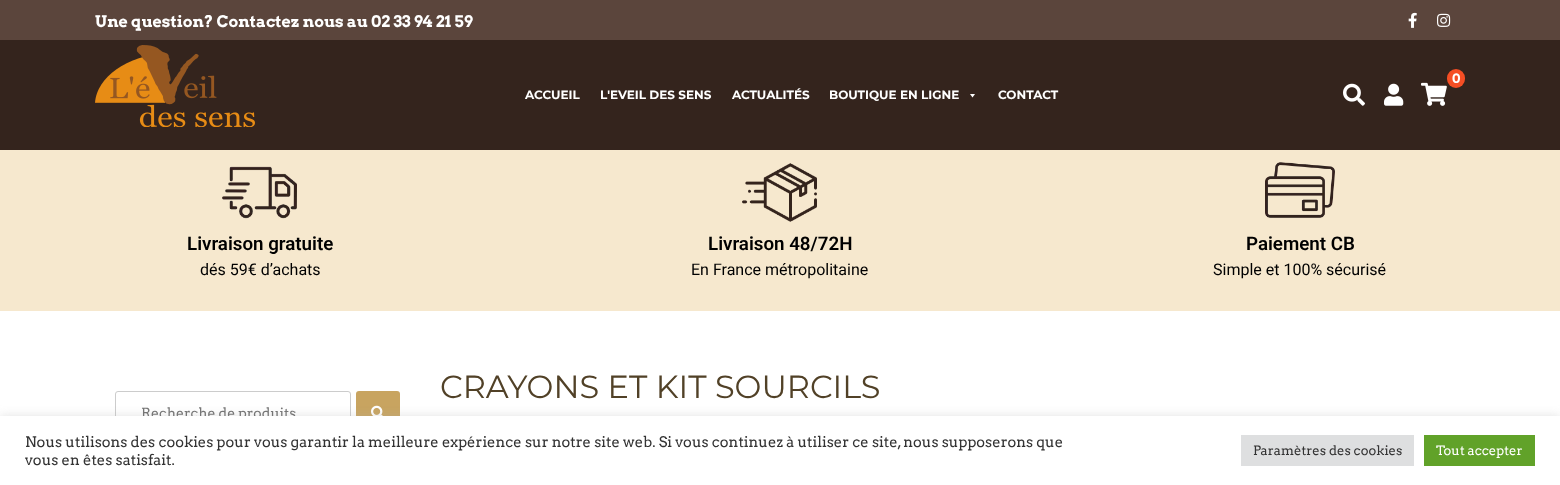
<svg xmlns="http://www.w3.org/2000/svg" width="1560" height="485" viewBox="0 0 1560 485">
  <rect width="100%" height="100%" fill="#fff"/>
  <path d="M0 0h1560v40H0z" fill="#5b453c"/>
  <image x="1408" y="12" width="9" height="16" href="img/1.png"/>
  <image x="1437" y="13" width="14" height="14" href="img/2.png"/>
  <path d="M0 40h1560v110H0z" fill="#34241d"/>
  <image x="95" y="45" width="160" height="82" href="img/3.png"/>
  <rect x="1447" y="69" width="18" height="19" rx="9" fill="#f54e24"/>
  <image x="1421" y="82" width="26" height="24" href="img/4.png"/>
  <image x="1343" y="83" width="22" height="23" href="img/5.png"/>
  <image x="1384" y="83" width="20" height="23" href="img/6.png"/>
  <path d="M975 94L972.5 97.5L970 94Z" fill="#fff"/>
  <path d="M0 150h1560v161H0z" fill="#f6e8ce"/>
  <image x="222" y="166" width="75" height="53" href="img/7.png"/>
  <image x="742" y="163" width="75" height="59" href="img/8.png"/>
  <image x="1265" y="162" width="70" height="56" href="img/9.png"/>
  <rect x="115.5" y="391.5" width="235" height="43" rx="2.5" fill="none" stroke="#ccc"/>
  <rect x="356" y="391" width="44" height="44" rx="3" fill="#c8a460"/>
  <image x="371" y="405" width="12" height="11" href="img/10.png"/>
  <path d="M0 415h1560v69H0z" fill="#acabab4d" filter="blur(5px)"/>
  <text x="95" y="27" font-family="Arvo" font-size="16" font-weight="bold" fill="#fff">Une question? Contactez nous au 02 33 94 21 59</text>
  <text x="1452" y="83" font-family="Arvo" font-size="13" font-weight="bold" fill="#fff">0</text>
  <g font-family="Montserrat" font-size="12" font-weight="bold" fill="#fff">
    <text x="525" y="99">ACCUEIL</text>
    <text x="600" y="99">L'EVEIL DES SENS</text>
    <text x="732" y="99">ACTUALITÉS</text>
    <text x="829" y="99">BOUTIQUE EN LIGNE</text>
    <text x="998" y="99">CONTACT</text>
  </g>
  <text x="187" y="250" font-family="Roboto" font-size="18.75" font-weight="600" fill="#000">Livraison gratuite</text>
  <text x="200" y="275" font-family="Roboto" font-size="16" fill="#000">dés 59€ d’achats</text>
  <text x="708" y="250" font-family="Roboto" font-size="18.75" font-weight="600" fill="#000">Livraison 48/72H</text>
  <text x="691" y="275" font-family="Roboto" font-size="16" fill="#000">En France métropolitaine</text>
  <text x="1246" y="250" font-family="Roboto" font-size="18.75" font-weight="600" fill="#000">Paiement CB</text>
  <text x="1213" y="275" font-family="Roboto" font-size="16" fill="#000">Simple et 100% sécurisé</text>
  <text x="440" y="398" font-family="Montserrat" font-size="32" fill="#514127">CRAYONS ET KIT SOURCILS</text>
  <text x="141" y="418" font-family="Arvo" font-size="14" fill="#757575">Recherche de produits</text>
  <path d="M0 416h1560v69H0z" fill="#fff"/>
  <g font-family="Arvo" font-size="14.67" fill="#333">
    <text x="25" y="447">Nous utilisons des cookies pour vous garantir la meilleure expérience sur notre site web. Si vous continuez à utiliser ce site, nous supposerons que</text>
    <text x="25" y="465">vous en êtes satisfait.</text>
  </g>
  <path d="M1241 435h173v31H1241z" fill="#dedfe0"/>
  <text x="1253" y="455" font-family="Arvo" font-size="13" fill="#333">Paramètres des cookies</text>
  <path d="M1424 435h111v31H1424z" fill="#61a229"/>
  <text x="1436" y="455" font-family="Arvo" font-size="13" fill="#fff">Tout accepter</text>
</svg>
